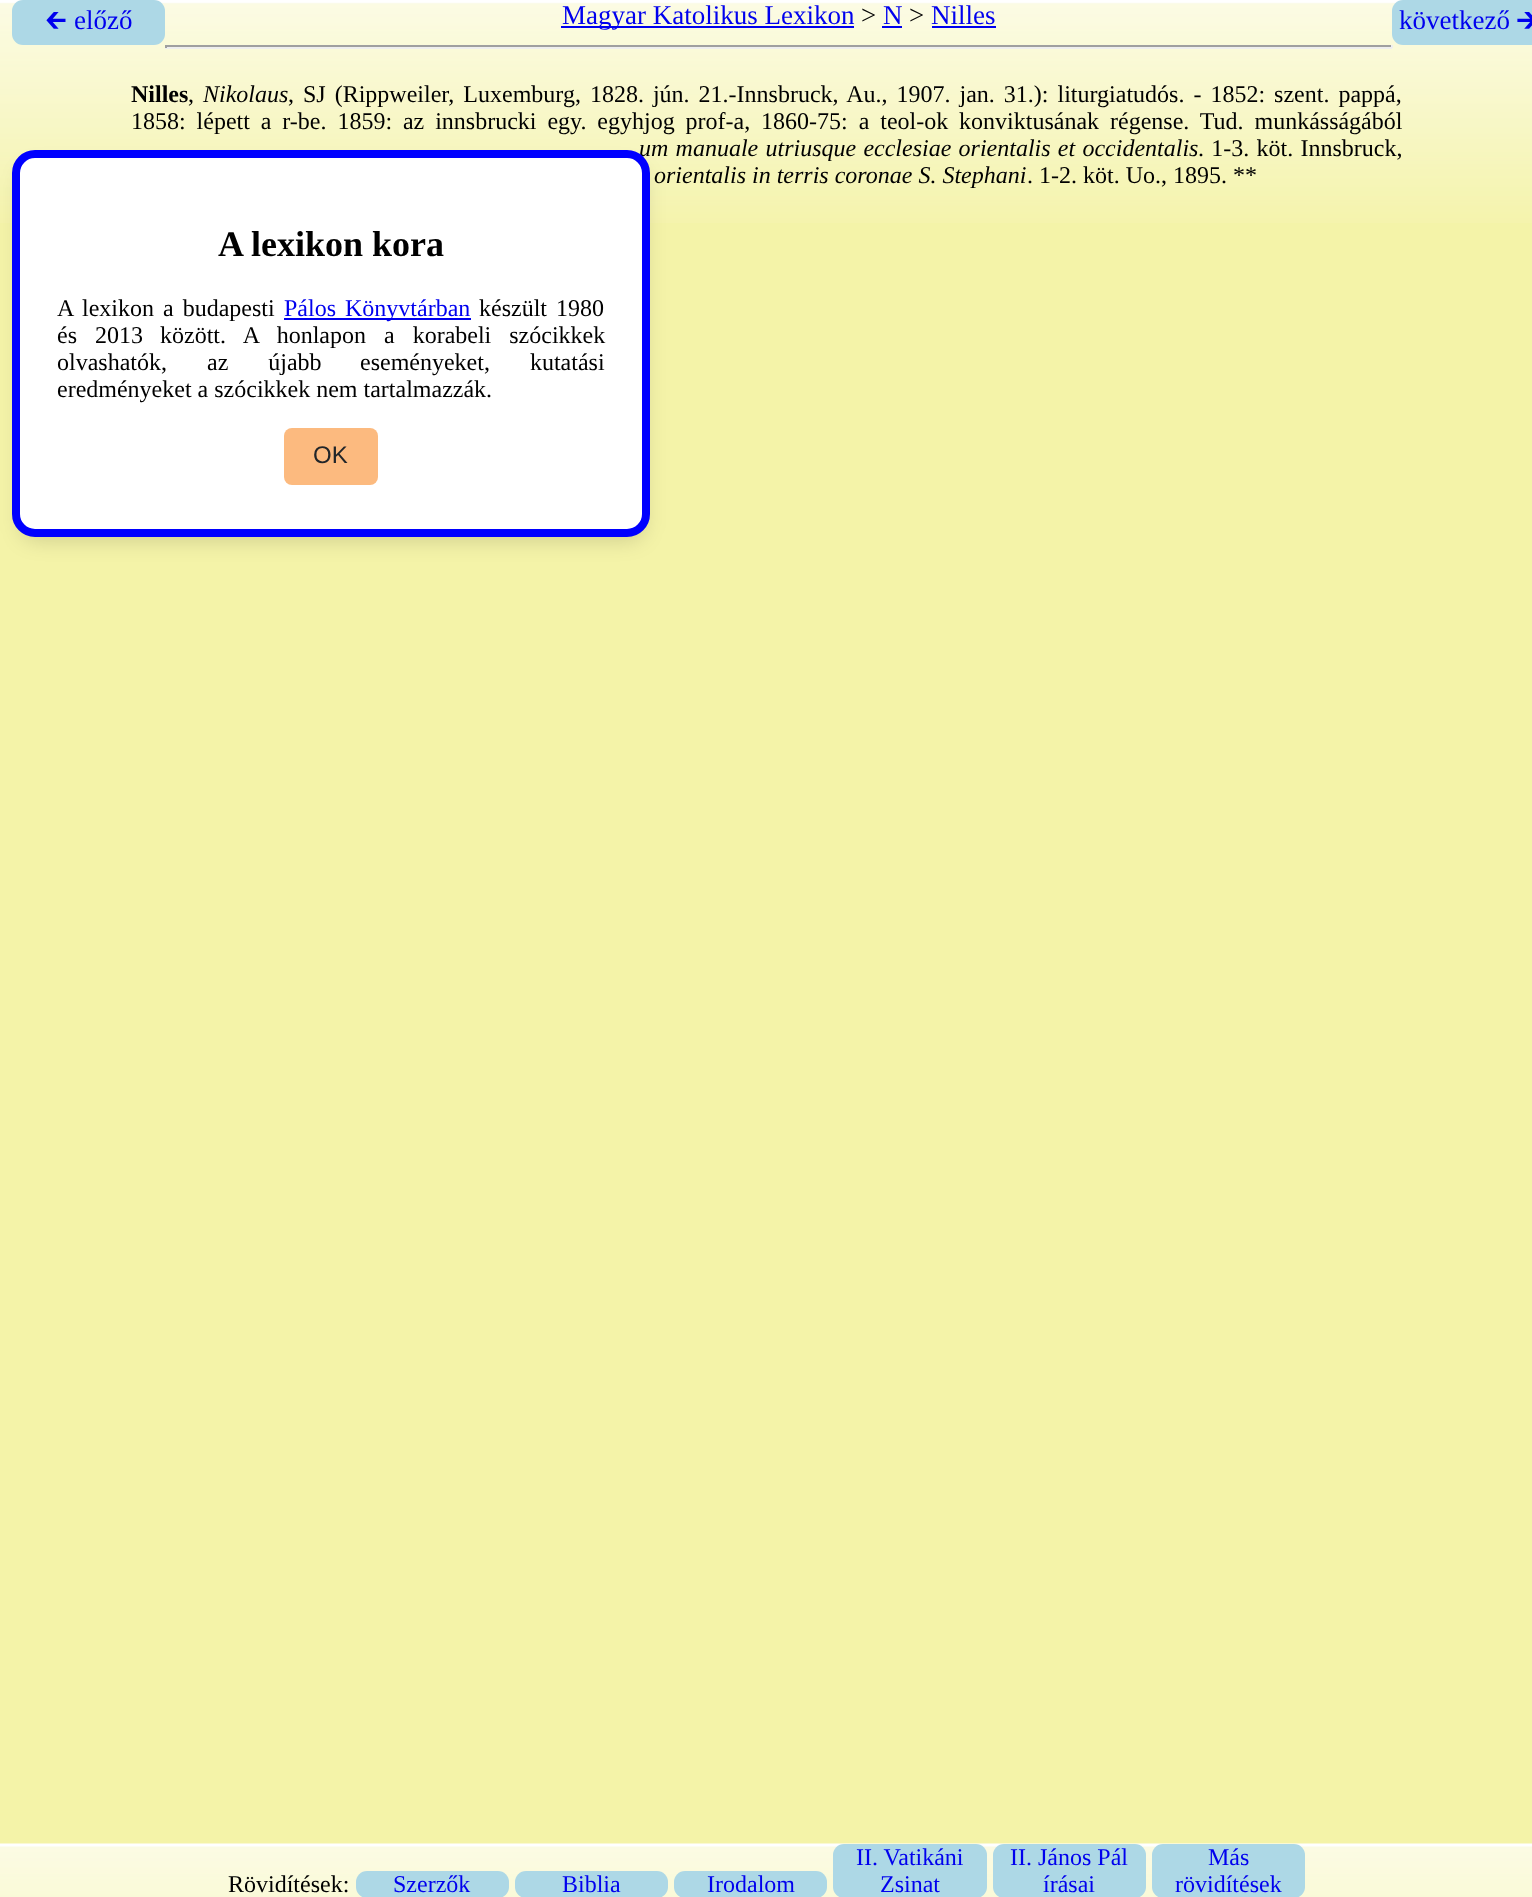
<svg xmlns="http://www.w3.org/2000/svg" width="1532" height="1897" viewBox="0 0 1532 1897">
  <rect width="100%" height="100%" fill="#f4f3a8"/>
  <image x="0" y="0" width="1532" height="223" href="img/1.png"/>
  <rect x="12" width="153" height="45" rx="11" fill="#add8e6"/>
  <path d="M561 26h293v2H561z" fill="#00e"/>
  <path d="M882 26h20v2H882z" fill="#00e"/>
  <path d="M932 26h64v2H932z" fill="#00e"/>
  <path d="M165 45h1227v2H165z" fill="#9f9f9f"/>
  <path d="M1391 45h2v3H1391z" fill="#eee"/>
  <path d="M165 47h1227v2H165z" fill="#eee"/>
  <path d="M165 45h2v3H165z" fill="#9f9f9f"/>
  <rect x="1392" width="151" height="45" rx="11" fill="#add8e6"/>
  <rect x="21" y="168" width="623" height="372" rx="15" fill="#00000026" filter="blur(10.5px)"/>
  <image x="0" y="1843" width="1532" height="54" href="img/2.png"/>
  <rect x="356" y="1871" width="153" height="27" rx="11" fill="#add8e6"/>
  <rect x="515" y="1871" width="153" height="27" rx="11" fill="#add8e6"/>
  <rect x="674" y="1871" width="153" height="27" rx="11" fill="#add8e6"/>
  <rect x="833" y="1844" width="154" height="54" rx="11" fill="#add8e6"/>
  <rect x="993" y="1844" width="153" height="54" rx="11" fill="#add8e6"/>
  <rect x="1152" y="1844" width="153" height="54" rx="11" fill="#add8e6"/>
  <text x="45" y="29" font-family="'Noto Sans Symbols 2'" font-size="27" fill="#00e">🡰</text>
  <g font-family="Liberation Serif" font-size="27" fill="#00e">
    <text x="74" y="29">előző</text>
    <text x="562" y="24">Magyar Katolikus Lexikon</text>
  </g>
  <text x="861" y="24" font-family="Liberation Serif" font-size="27" fill="#000">&gt;</text>
  <text x="883" y="24" font-family="Liberation Serif" font-size="27" fill="#00e">N</text>
  <text x="909" y="24" font-family="Liberation Serif" font-size="27" fill="#000">&gt;</text>
  <g font-family="Liberation Serif" font-size="27" fill="#00e">
    <text x="931" y="24">Nilles</text>
    <text x="1399" y="29">következő</text>
  </g>
  <text x="1516" y="29" font-family="'Noto Sans Symbols 2'" font-size="27" fill="#00e">🡲</text>
  <text x="131" y="102" font-family="Liberation Serif" font-size="24" font-weight="bold" fill="#000">Nilles</text>
  <text x="188" y="102" font-family="Liberation Serif" font-size="24" fill="#000">,</text>
  <text x="203" y="102" font-family="Liberation Serif" font-size="24" font-style="italic" fill="#000">Nikolaus</text>
  <g font-family="Liberation Serif" font-size="24" fill="#000">
    <text x="288" y="102" word-spacing="3">, SJ (Rippweiler, Luxemburg, 1828. jún. 21.-Innsbruck, Au., 1907. jan. 31.): liturgiatudós. - 1852: szent. pappá,</text>
    <text x="131" y="129" word-spacing="4.9">1858: lépett a r-be. 1859: az innsbrucki egy. egyhjog prof-a, 1860-75: a teol-ok konviktusának régense. Tud. munkásságából</text>
  </g>
  <text x="639" y="156" word-spacing="1.25" font-family="Liberation Serif" font-size="24" font-style="italic" fill="#000">um manuale utriusque ecclesiae orientalis et occidentalis</text>
  <text x="1198" y="156" word-spacing="1.25" font-family="Liberation Serif" font-size="24" fill="#000">. 1-3. köt. Innsbruck,</text>
  <text x="654" y="183" font-family="Liberation Serif" font-size="24" font-style="italic" fill="#000">orientalis in terris coronae S. Stephani</text>
  <text x="1027" y="183" font-family="Liberation Serif" font-size="24" fill="#000">. 1-2. köt. Uo., 1895. **</text>
  <rect x="16" y="154" width="630" height="379" rx="19" fill="#fff" stroke="#00f" stroke-width="8"/>
  <text x="218" y="256" font-family="Liberation Serif" font-size="36" font-weight="bold" fill="#000">A lexikon kora</text>
  <text x="57" y="316" word-spacing="3" font-family="Liberation Serif" font-size="24" fill="#000">A lexikon a budapesti</text>
  <path d="M284 318h187v2H284z" fill="#00e"/>
  <text x="284" y="316" word-spacing="3" font-family="Liberation Serif" font-size="24" fill="#00e">Pálos Könyvtárban</text>
  <g font-family="Liberation Serif" font-size="24" fill="#000">
    <text x="479" y="316" word-spacing="3">készült 1980</text>
    <text x="57" y="343" word-spacing="12">és 2013</text>
    <text x="160" y="343" word-spacing="12">között. A honlapon a korabeli szócikkek</text>
    <text x="57" y="370" word-spacing="34">olvashatók, az újabb</text>
    <text x="360" y="370" word-spacing="34">eseményeket, kutatási</text>
    <text x="57" y="397">eredményeket a szócikkek nem tartalmazzák.</text>
  </g>
  <rect x="284" y="428" width="94" height="57" rx="8" fill="#fcba7f"/>
  <text x="313" y="463" font-family="Liberation Sans" font-size="24" fill="#212529">OK</text>
  <text x="228" y="1892" font-family="Liberation Serif" font-size="24" fill="#000">Rövidítések:</text>
  <g font-family="Liberation Serif" font-size="24" fill="#00e">
    <text x="393" y="1892">Szerzők</text>
    <text x="562" y="1892">Biblia</text>
    <text x="707" y="1892">Irodalom</text>
    <text x="856" y="1865">II. Vatikáni</text>
    <text x="880" y="1892">Zsinat</text>
    <text x="1010" y="1865">II. János Pál</text>
    <text x="1043" y="1892">írásai</text>
    <text x="1208" y="1865">Más</text>
    <text x="1175" y="1892">rövidítések</text>
  </g>
</svg>
